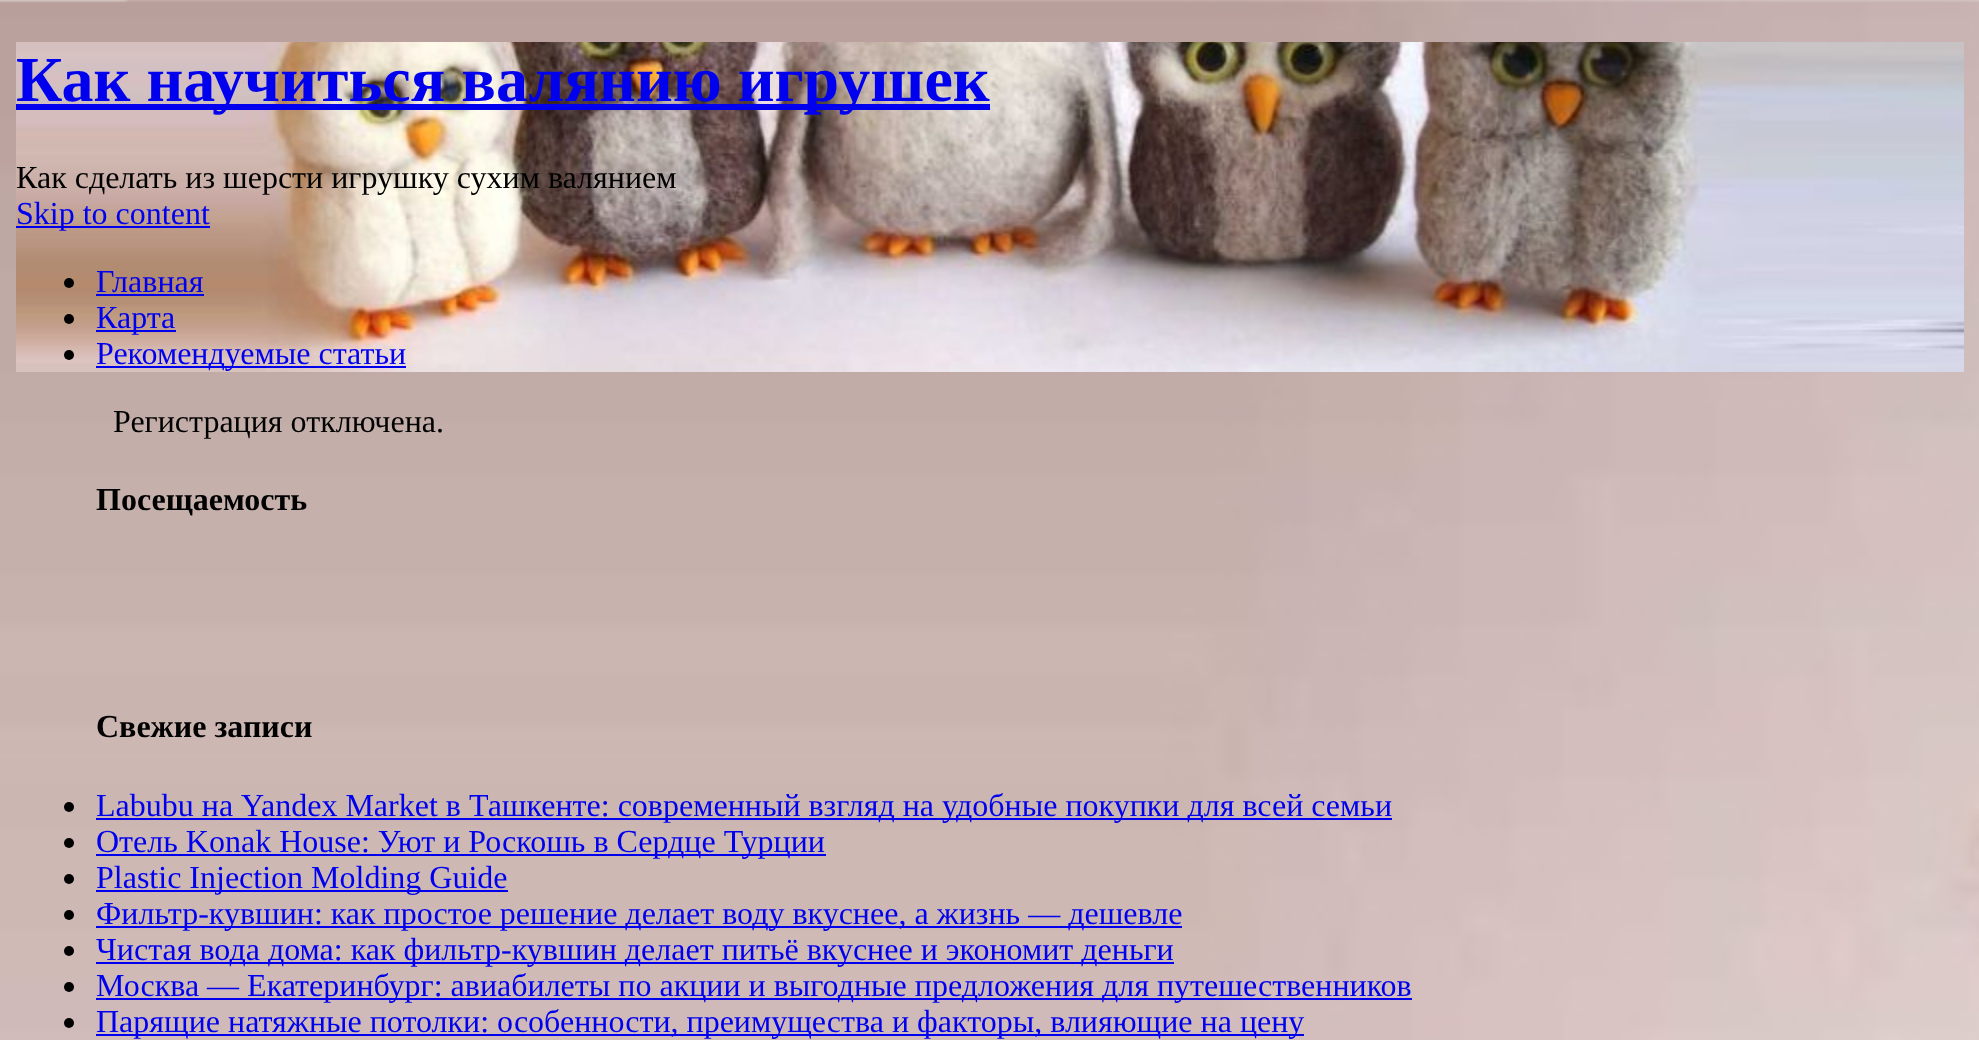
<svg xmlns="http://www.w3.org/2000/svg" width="1979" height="1040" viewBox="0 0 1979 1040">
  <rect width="100%" height="100%" fill="#fff"/>
  <image x="0" y="0" width="1979" height="1040" href="img/1.png"/>
  <image x="16" y="42" width="1948" height="330" href="img/2.png"/>
  <path d="M16 104h974v6H16z" fill="#00e"/>
  <path d="M16 226h194v2H16z" fill="#00e"/>
  <circle cx="69" cy="283" r="5" fill="#000"/>
  <path d="M96 294h108v2H96z" fill="#00e"/>
  <circle cx="69" cy="319" r="5" fill="#000"/>
  <path d="M96 330h80v2H96z" fill="#00e"/>
  <circle cx="69" cy="355" r="5" fill="#000"/>
  <path d="M96 366h310v2H96z" fill="#00e"/>
  <circle cx="69" cy="807" r="5" fill="#000"/>
  <path d="M96 818h1296v2H96z" fill="#00e"/>
  <circle cx="69" cy="843" r="5" fill="#000"/>
  <path d="M96 854h730v2H96z" fill="#00e"/>
  <circle cx="69" cy="879" r="5" fill="#000"/>
  <path d="M96 890h412v2H96z" fill="#00e"/>
  <circle cx="69" cy="915" r="5" fill="#000"/>
  <path d="M96 926h1086v2H96z" fill="#00e"/>
  <circle cx="69" cy="951" r="5" fill="#000"/>
  <path d="M96 962h1078v2H96z" fill="#00e"/>
  <circle cx="69" cy="987" r="5" fill="#000"/>
  <path d="M96 998h1316v2H96z" fill="#00e"/>
  <circle cx="69" cy="1023" r="5" fill="#000"/>
  <path d="M96 1034h1208v2H96z" fill="#00e"/>
  <text x="16" y="101" font-family="Liberation Serif" font-size="64" font-weight="bold" fill="#00e">Как научиться валянию игрушек</text>
  <text x="16" y="188" font-family="Liberation Serif" font-size="32" fill="#000">Как сделать из шерсти игрушку сухим валянием</text>
  <g font-family="Liberation Serif" font-size="32" fill="#00e">
    <text x="16" y="224">Skip to content</text>
    <text x="96" y="292">Главная</text>
    <text x="96" y="328">Карта</text>
    <text x="96" y="364">Рекомендуемые статьи</text>
  </g>
  <text x="113" y="432" font-family="Liberation Serif" font-size="32" fill="#000">Регистрация отключена.</text>
  <g font-family="Liberation Serif" font-size="32" font-weight="bold" fill="#000">
    <text x="96" y="510">Посещаемость</text>
    <text x="96" y="737">Свежие записи</text>
  </g>
  <g font-family="Liberation Serif" font-size="32" fill="#00e">
    <text x="96" y="816">Labubu на Yandex Market в Ташкенте: современный взгляд на удобные покупки для всей семьи</text>
    <text x="96" y="852">Отель Konak House: Уют и Роскошь в Сердце Турции</text>
    <text x="96" y="888">Plastic Injection Molding Guide</text>
    <text x="96" y="924">Фильтр-кувшин: как простое решение делает воду вкуснее, а жизнь — дешевле</text>
    <text x="96" y="960">Чистая вода дома: как фильтр-кувшин делает питьё вкуснее и экономит деньги</text>
    <text x="96" y="996">Москва — Екатеринбург: авиабилеты по акции и выгодные предложения для путешественников</text>
    <text x="96" y="1032">Парящие натяжные потолки: особенности, преимущества и факторы, влияющие на цену</text>
  </g>
</svg>
